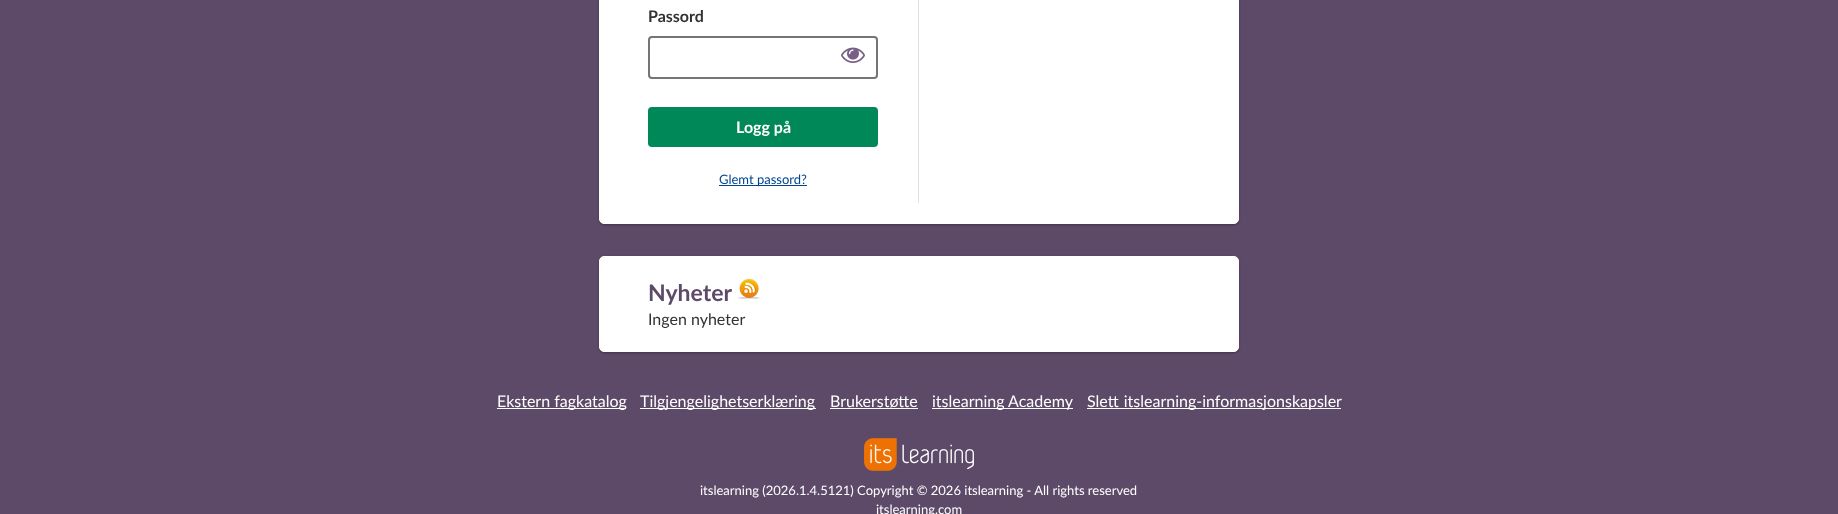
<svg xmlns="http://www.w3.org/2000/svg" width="1838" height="514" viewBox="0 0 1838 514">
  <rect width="100%" height="100%" fill="#5d4a68"/>
  <rect x="599" y="-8" width="640" height="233" rx="5" fill="#07070754" filter="blur(1px)"/>
  <rect x="599.5" y="-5.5" width="639" height="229" rx="4.5" fill="#fff" stroke="#fff"/>
  <path d="M918 0h1v203H918z" fill="#e1e1e1"/>
  <rect x="649" y="37" width="228" height="41" rx="3" fill="none" stroke="#757575" stroke-width="2"/>
  <image x="841" y="47" width="24" height="16" href="img/1.png"/>
  <rect x="649" y="108" width="228" height="38" rx="3" fill="#008859" stroke="#008859" stroke-width="2"/>
  <path d="M719 185h88v1H719z" fill="#00458f"/>
  <rect x="599" y="257" width="640" height="96" rx="5" fill="#07070754" filter="blur(1px)"/>
  <rect x="599.5" y="256.5" width="639" height="95" rx="4.5" fill="#fff" stroke="#fff"/>
  <image x="738" y="278" width="22" height="21" href="img/2.png"/>
  <path d="M497 408h129v1H497z" fill="#fff"/>
  <path d="M640 408h176v1H640z" fill="#fff"/>
  <path d="M830 408h88v1H830z" fill="#fff"/>
  <path d="M932 408h141v1H932z" fill="#fff"/>
  <path d="M1087 408h254v1H1087z" fill="#fff"/>
  <image x="864" y="438" width="110" height="33" href="img/3.png"/>
  <text x="648" y="22" font-family="Lato" font-size="16" font-weight="bold" fill="#333">Passord</text>
  <text x="736" y="133" font-family="Lato" font-size="16" font-weight="bold" fill="#fff">Logg på</text>
  <text x="719" y="184" font-family="Lato" font-size="13" fill="#00458f">Glemt passord?</text>
  <text x="648" y="301" font-family="Lato" font-size="23" font-weight="bold" fill="#5d4a68">Nyheter</text>
  <text x="648" y="325" font-family="Lato" font-size="16" fill="#333">Ingen nyheter</text>
  <g font-family="Lato" font-size="16" fill="#fff">
    <text x="497" y="407">Ekstern fagkatalog</text>
    <text x="640" y="407">Tilgjengelighetserklæring</text>
    <text x="830" y="407">Brukerstøtte</text>
    <text x="932" y="407">itslearning Academy</text>
    <text x="1087" y="407" word-spacing="1">Slett itslearning-informasjonskapsler</text>
  </g>
  <g font-family="Lato" font-size="13" fill="#fff">
    <text x="700" y="495">itslearning (2026.1.4.5121) Copyright © 2026 itslearning - All rights reserved</text>
    <text x="876" y="514">itslearning.com</text>
  </g>
</svg>
